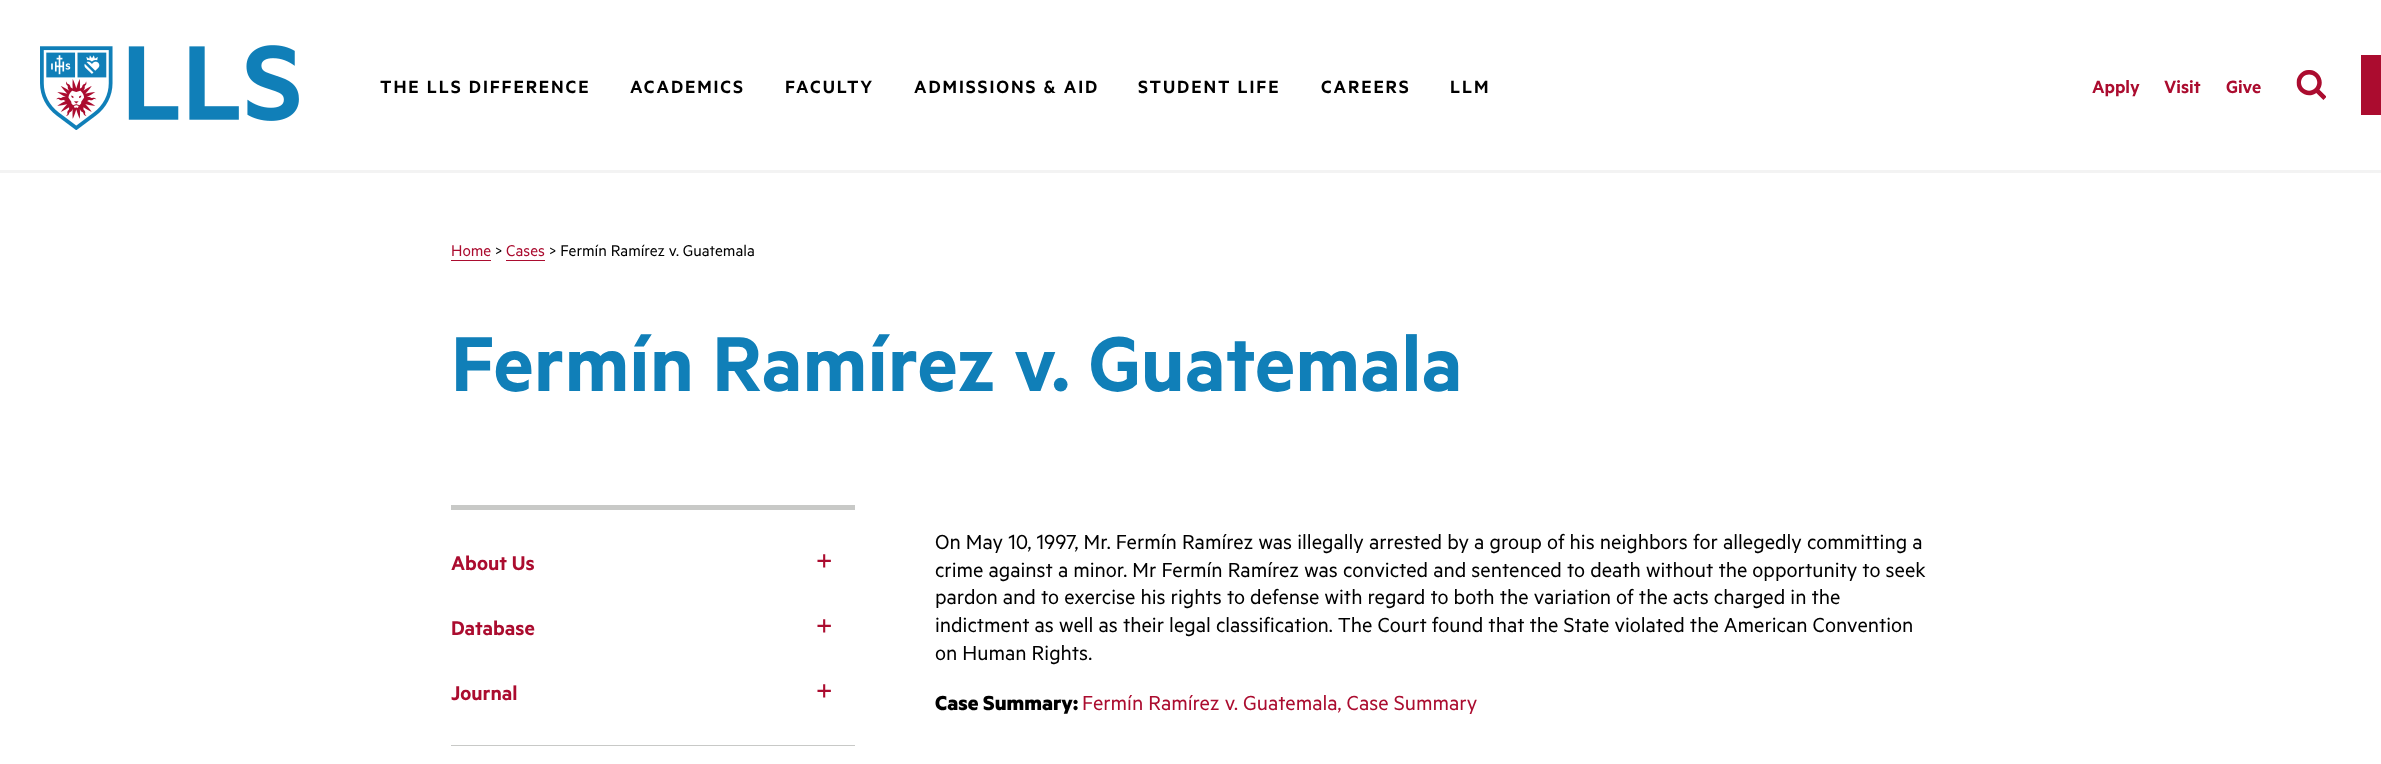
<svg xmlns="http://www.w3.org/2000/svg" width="2381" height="764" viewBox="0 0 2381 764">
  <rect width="100%" height="100%" fill="#fff"/>
  <path d="M0 170h2381v3H0z" fill="#f3f3f3"/>
  <image x="40" y="45" width="259" height="85" href="img/1.png"/>
  <path d="M2361 55h20v60H2361z" fill="#ab0c2f"/>
  <image x="2296" y="70" width="30" height="30" href="img/2.png"/>
  <path d="M451 260h40v1H451z" fill="#ab0c2f"/>
  <path d="M506 260h39v1H506z" fill="#ab0c2f"/>
  <path d="M451 505h404v5H451z" fill="#c8c9c7"/>
  <path d="M451 745h404v1H451z" fill="#c8c9c7"/>
  <g font-family="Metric" font-size="20" font-weight="600" letter-spacing="1.9" fill="#000">
    <text x="380" y="93">THE LLS DIFFERENCE</text>
    <text x="630" y="93">ACADEMICS</text>
    <text x="785" y="93">FACULTY</text>
    <text x="914" y="93">ADMISSIONS &amp; AID</text>
    <text x="1138" y="93">STUDENT LIFE</text>
    <text x="1321" y="93">CAREERS</text>
    <text x="1450" y="93">LLM</text>
  </g>
  <g font-family="Metric" font-size="20" font-weight="600" fill="#ab0c2f">
    <text x="2092" y="93">Apply</text>
    <text x="2164" y="93">Visit</text>
    <text x="2226" y="93">Give</text>
  </g>
  <text x="451" y="256" font-family="Metric" font-size="17.5" fill="#ab0c2f">Home</text>
  <text x="495" y="256" font-family="Metric" font-size="17.5" fill="#000">&gt;</text>
  <text x="506" y="256" font-family="Metric" font-size="17.5" fill="#ab0c2f">Cases</text>
  <text x="549" y="256" font-family="Metric" font-size="17.5" fill="#000">&gt; Fermín Ramírez v. Guatemala</text>
  <text x="451" y="391" font-family="Metric" font-size="87.5" font-weight="600" fill="#107fb8">Fermín Ramírez v. Guatemala</text>
  <text x="451" y="570" font-family="Metric" font-size="22.5" font-weight="600" fill="#ab0c2f">About Us</text>
  <text x="815" y="571" font-family="Metric" font-size="34" fill="#ab0c2f">+</text>
  <text x="451" y="635" font-family="Metric" font-size="22.5" font-weight="600" fill="#ab0c2f">Database</text>
  <text x="815" y="636" font-family="Metric" font-size="34" fill="#ab0c2f">+</text>
  <text x="451" y="700" font-family="Metric" font-size="22.5" font-weight="600" fill="#ab0c2f">Journal</text>
  <text x="815" y="701" font-family="Metric" font-size="34" fill="#ab0c2f">+</text>
  <g font-family="Metric" font-size="23" fill="#000">
    <text x="935" y="549">On May 10, 1997, Mr. Fermín Ramírez was illegally arrested by a group of his neighbors for allegedly committing a</text>
    <text x="935" y="577">crime against a minor. Mr Fermín Ramírez was convicted and sentenced to death without the opportunity to seek</text>
    <text x="935" y="604">pardon and to exercise his rights to defense with regard to both the variation of the acts charged in the</text>
    <text x="935" y="632">indictment as well as their legal classification. The Court found that the State violated the American Convention</text>
    <text x="935" y="660">on Human Rights.</text>
  </g>
  <text x="935" y="710" font-family="Metric" font-size="23" font-weight="bold" fill="#000">Case Summary:</text>
  <text x="1082" y="710" font-family="Metric" font-size="23" fill="#ab0c2f">Fermín Ramírez v. Guatemala, Case Summary</text>
</svg>
